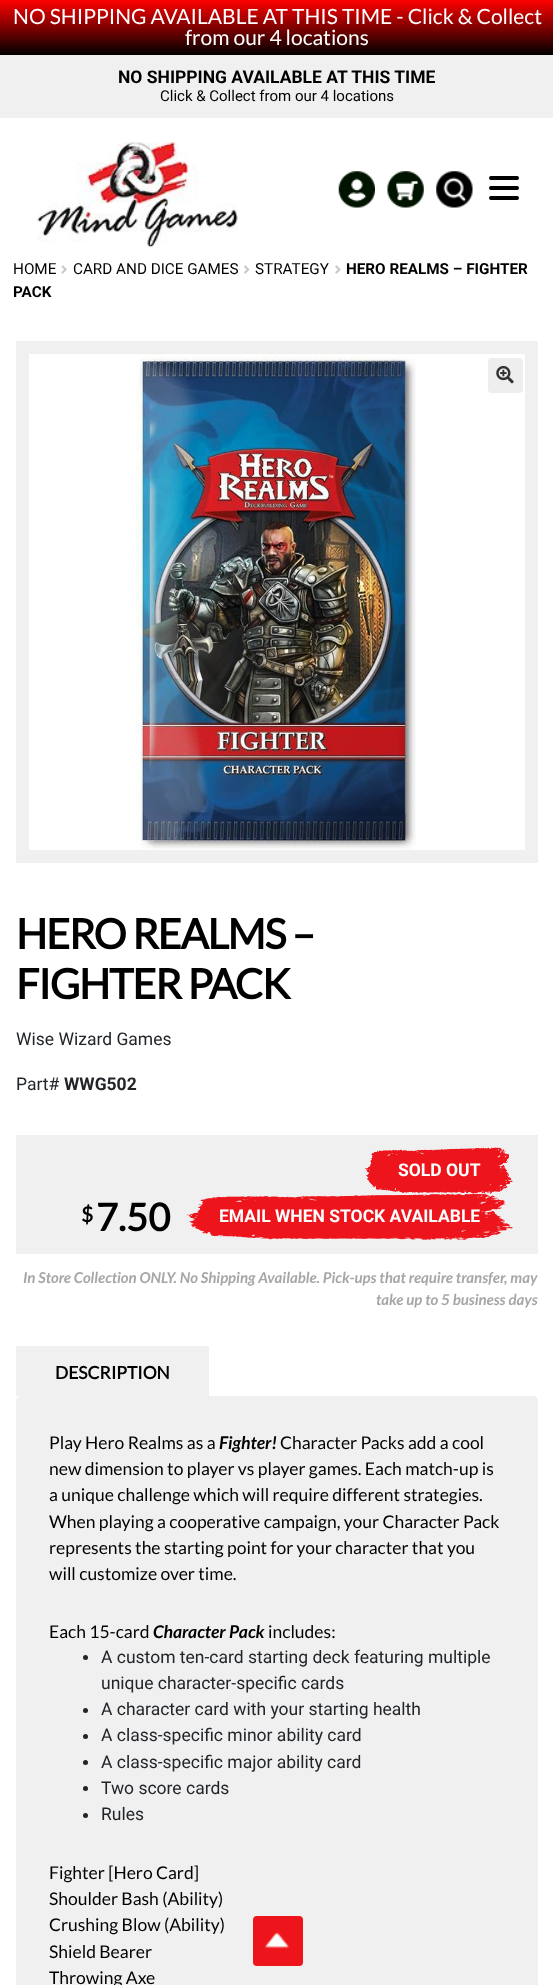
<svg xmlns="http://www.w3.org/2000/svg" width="553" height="1985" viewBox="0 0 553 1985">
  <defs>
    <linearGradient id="g1" gradientUnits="userSpaceOnUse" x1="277" y1="0" x2="277" y2="55"><stop offset="0" stop-color="#f00"/><stop offset="1" stop-color="#000"/></linearGradient>
  </defs>
  <rect width="100%" height="100%" fill="#fff"/>
  <path d="M0 0h553v55H0z" fill="url(#g1)"/>
  <path d="M0 55h553v63H0z" fill="#f0f0f0"/>
  <image x="37" y="142" width="201" height="105" href="img/1.png"/>
  <image x="338" y="171" width="37" height="37" href="img/2.png"/>
  <image x="387" y="171" width="37" height="37" href="img/3.png"/>
  <image x="436" y="171" width="37" height="37" href="img/4.png"/>
  <rect x="489" y="176" width="30" height="4" rx="2" fill="#000"/>
  <rect x="489" y="186" width="30" height="4" rx="2" fill="#000"/>
  <rect x="489" y="196" width="30" height="4" rx="2" fill="#000"/>
  <image x="61" y="265" width="6" height="9" href="img/5.png"/>
  <image x="244" y="265" width="6" height="9" href="img/6.png"/>
  <image x="335" y="265" width="6" height="9" href="img/7.png"/>
  <path d="M16 341h522v522H16z" fill="#f0f0f0"/>
  <image x="29" y="354" width="496" height="496" href="img/8.png"/>
  <rect x="488" y="358" width="35" height="35" rx="4" fill="#eee"/>
  <image x="496" y="365" width="18" height="19" href="img/9.png"/>
  <path d="M16 1135h522v119H16z" fill="#f0f0f0"/>
  <image x="365" y="1147" width="148" height="47" href="img/10.png"/>
  <image x="186" y="1193" width="327" height="47" href="img/11.png"/>
  <path d="M16 1346h193v50H16z" fill="#f0f0f0"/>
  <rect x="16" y="1396" width="522" height="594" rx="5" fill="#f0f0f0"/>
  <circle cx="85.5" cy="1657.5" r="2.5" fill="#212529"/>
  <circle cx="85.5" cy="1710.5" r="2.5" fill="#212529"/>
  <circle cx="85.5" cy="1736.5" r="2.5" fill="#212529"/>
  <circle cx="85.5" cy="1762.5" r="2.5" fill="#212529"/>
  <circle cx="85.5" cy="1788.5" r="2.5" fill="#212529"/>
  <circle cx="85.5" cy="1815.5" r="2.5" fill="#212529"/>
  <rect x="253" y="1916" width="50" height="50" rx="4" fill="#ed141c"/>
  <image x="264" y="1932" width="26" height="17" href="img/12.png"/>
  <g font-family="Lato" font-size="21" fill="#fff">
    <text x="13" y="24">NO SHIPPING AVAILABLE AT THIS TIME - Click &amp; Collect</text>
    <text x="185" y="45">from our 4 locations</text>
  </g>
  <text x="118" y="83" font-family="Roboto" font-size="17.5" font-weight="bold" fill="#000">NO SHIPPING AVAILABLE AT THIS TIME</text>
  <text x="160" y="101" font-family="Roboto" font-size="15" fill="#000">Click &amp; Collect from our 4 locations</text>
  <g font-family="Roboto" font-size="15.25" fill="#000">
    <text x="13" y="274">HOME</text>
    <text x="73" y="274">CARD AND DICE GAMES</text>
    <text x="255" y="274">STRATEGY</text>
  </g>
  <g font-family="Roboto" font-size="15.25" font-weight="bold" fill="#000">
    <text x="346" y="274">HERO REALMS – FIGHTER</text>
    <text x="13" y="297">PACK</text>
  </g>
  <g font-family="Lato" font-size="41.5" font-weight="bold" letter-spacing="-1.25" fill="#000">
    <text x="16" y="949">HERO REALMS –</text>
    <text x="16" y="999">FIGHTER PACK</text>
  </g>
  <g font-family="Roboto" font-size="17.5" fill="#212529">
    <text x="16" y="1045">Wise Wizard Games</text>
    <text x="16" y="1090">Part#</text>
  </g>
  <text x="64" y="1090" font-family="Roboto" font-size="17.5" font-weight="bold" fill="#212529">WWG502</text>
  <text x="398" y="1176" font-family="Roboto" font-size="17.5" font-weight="bold" fill="#fff">SOLD OUT</text>
  <text x="81" y="1222" font-family="Lato" font-size="21" font-weight="bold" fill="#000">$</text>
  <text x="96" y="1231" font-family="Lato" font-size="38" font-weight="bold" fill="#000">7.50</text>
  <text x="219" y="1222" font-family="Roboto" font-size="17.5" font-weight="bold" fill="#fff">EMAIL WHEN STOCK AVAILABLE</text>
  <g font-family="Lato" font-size="15" font-weight="bold" font-style="italic" fill="#a6a6a6">
    <text x="23" y="1283">In Store Collection ONLY. No Shipping Available. Pick-ups that require transfer, may</text>
    <text x="376" y="1305">take up to 5 business days</text>
  </g>
  <text x="55" y="1379" font-family="Lato" font-size="17.5" font-weight="bold" fill="#000">DESCRIPTION</text>
  <text x="49" y="1449" font-family="Lato" font-size="17.5" fill="#000">Play Hero Realms as a</text>
  <text x="219" y="1449" font-family="Lato" font-size="17.5" font-weight="bold" font-style="italic" fill="#000">Fighter!</text>
  <g font-family="Lato" font-size="17.5" fill="#000">
    <text x="280" y="1449">Character Packs add a cool</text>
    <text x="49" y="1475">new dimension to player vs player games. Each match-up is</text>
    <text x="49" y="1501">a unique challenge which will require different strategies.</text>
    <text x="49" y="1528">When playing a cooperative campaign, your Character Pack</text>
    <text x="49" y="1554">represents the starting point for your character that you</text>
    <text x="49" y="1580">will customize over time.</text>
    <text x="49" y="1638">Each 15-card</text>
  </g>
  <text x="153" y="1638" font-family="Lato" font-size="17.5" font-weight="bold" font-style="italic" fill="#000">Character Pack</text>
  <text x="268" y="1638" font-family="Lato" font-size="17.5" fill="#000">includes:</text>
  <g font-family="Roboto" font-size="17.5" fill="#212529">
    <text x="101" y="1663">A custom ten-card starting deck featuring multiple</text>
    <text x="101" y="1689">unique character-specific cards</text>
    <text x="101" y="1715">A character card with your starting health</text>
    <text x="101" y="1741">A class-specific minor ability card</text>
    <text x="101" y="1768">A class-specific major ability card</text>
    <text x="101" y="1794">Two score cards</text>
    <text x="101" y="1820">Rules</text>
  </g>
  <g font-family="Lato" font-size="17.5" fill="#000">
    <text x="49" y="1879">Fighter [Hero Card]</text>
    <text x="49" y="1905">Shoulder Bash (Ability)</text>
    <text x="49" y="1931">Crushing Blow (Ability)</text>
    <text x="49" y="1958">Shield Bearer</text>
    <text x="49" y="1984">Throwing Axe</text>
  </g>
</svg>
